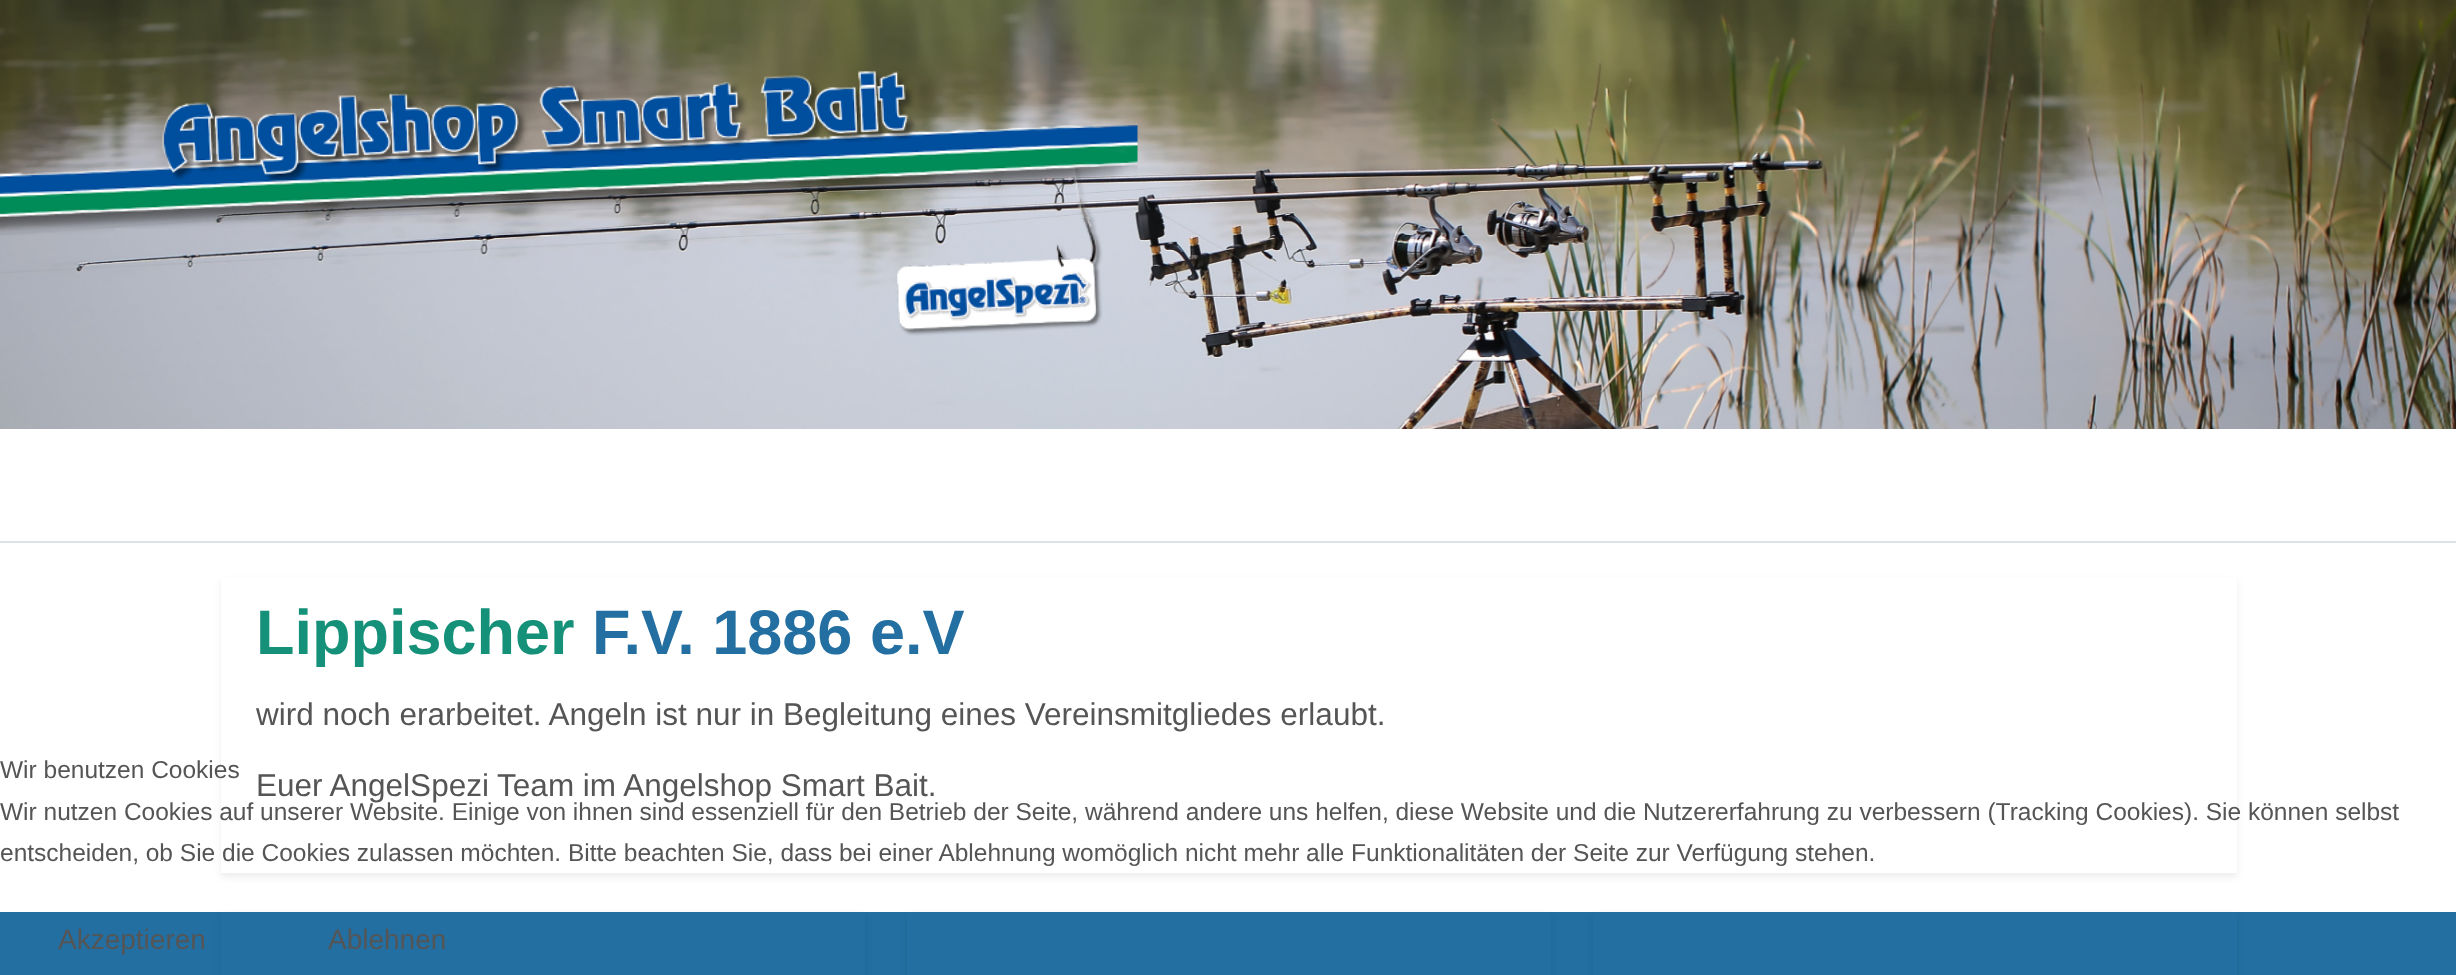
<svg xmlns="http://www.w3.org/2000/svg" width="2456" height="975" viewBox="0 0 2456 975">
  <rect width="100%" height="100%" fill="#fff"/>
  <image x="0" y="0" width="2456" height="429" href="img/1.png"/>
  <image x="0" y="70" width="1138" height="266" href="img/2.png"/>
  <path d="M0 541h2456v2H0z" fill="#dee2e6"/>
  <path d="M221 581h2016v296H221z" fill="#00000012" filter="blur(3.5px)"/>
  <path d="M221 578h2016v295H221z" fill="#fff"/>
  <path d="M0 912h2456v63H0z" fill="#236fa1"/>
  <path d="M221 915h644v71H221z" fill="#00000012" filter="blur(3.5px)"/>
  <path d="M221 912h644v63H221z" fill="#236fa1"/>
  <path d="M907 915h644v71H907z" fill="#00000012" filter="blur(3.5px)"/>
  <path d="M907 912h644v63H907z" fill="#236fa1"/>
  <path d="M1593 915h644v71H1593z" fill="#00000012" filter="blur(3.5px)"/>
  <path d="M1593 912h644v63H1593z" fill="#236fa1"/>
  <text x="256" y="654" font-family="Liberation Sans" font-size="63" font-weight="bold" fill="#169179">Lippischer</text>
  <text x="592" y="654" font-family="Liberation Sans" font-size="63" font-weight="bold" fill="#236fa1">F.V. 1886 e.V</text>
  <g font-family="Liberation Sans" font-size="31.5" fill="#555">
    <text x="256" y="725">wird noch erarbeitet. Angeln ist nur in Begleitung eines Vereinsmitgliedes erlaubt.</text>
    <text x="256" y="796">Euer AngelSpezi Team im Angelshop Smart Bait.</text>
  </g>
  <g font-family="Liberation Sans" font-size="24.5" fill="#555">
    <text x="0" y="778">Wir benutzen Cookies</text>
    <text x="0" y="820">Wir nutzen Cookies auf unserer Website. Einige von ihnen sind essenziell für den Betrieb der Seite, während andere uns helfen, diese Website und die Nutzererfahrung zu verbessern (Tracking Cookies). Sie können selbst</text>
    <text x="0" y="861">entscheiden, ob Sie die Cookies zulassen möchten. Bitte beachten Sie, dass bei einer Ablehnung womöglich nicht mehr alle Funktionalitäten der Seite zur Verfügung stehen.</text>
  </g>
  <g font-family="Liberation Sans" font-size="28" fill="#555">
    <text x="58" y="949">Akzeptieren</text>
    <text x="328" y="949">Ablehnen</text>
  </g>
</svg>
